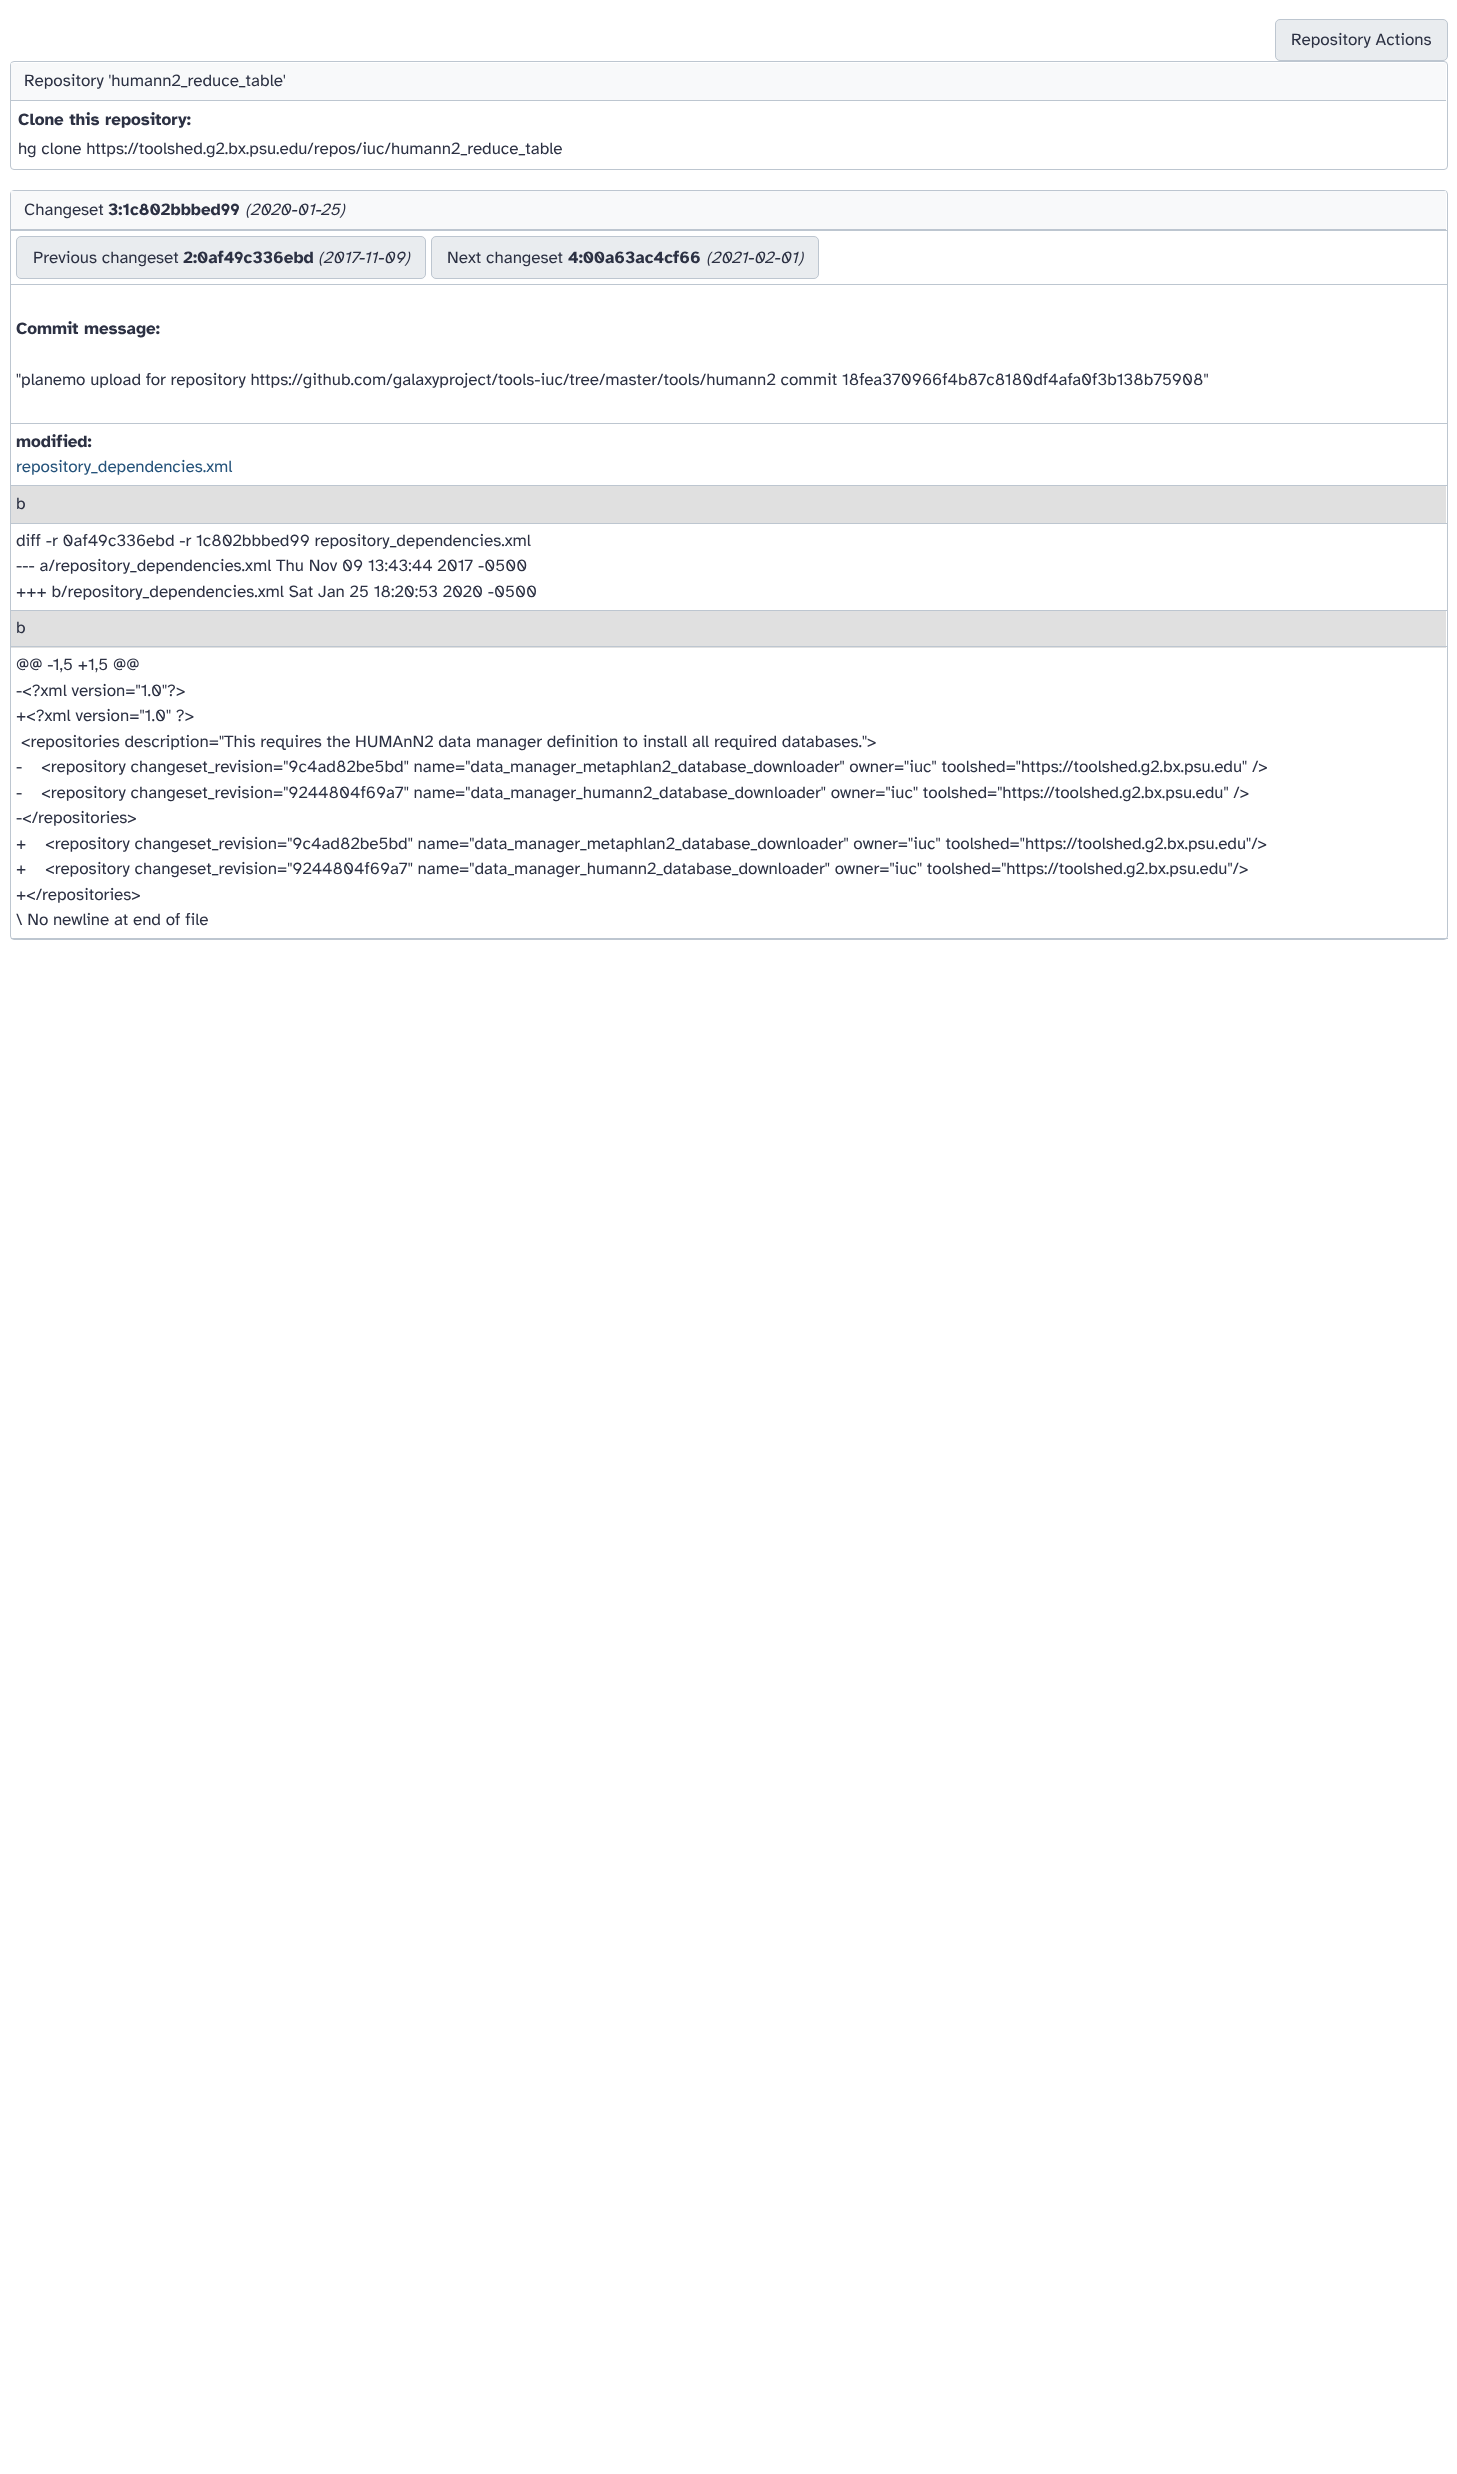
<svg xmlns="http://www.w3.org/2000/svg" width="1457" height="2474" viewBox="0 0 1457 2474">
  <rect width="100%" height="100%" fill="#fff"/>
  <rect x="1275.5" y="19.5" width="172" height="41" rx="4.5" fill="#e9ecef" stroke="#bdc6d0"/>
  <rect x="10.5" y="61.5" width="1437" height="108" rx="3.5" fill="none" stroke="#bdc6d0"/>
  <path d="M11 63h1435v37H11z" fill="#f8f9fa"/>
  <path d="M11 100h1435v1H11z" fill="#bdc6d0"/>
  <rect x="10.5" y="190.5" width="1437" height="749" rx="3.5" fill="none" stroke="#bdc6d0"/>
  <path d="M11 191h1435v38H11z" fill="#f8f9fa"/>
  <path d="M11 229h1435v1H11z" fill="#bdc6d0"/>
  <path d="M11 230h1437v1H11z" fill="#bdc6d0"/>
  <rect x="16.5" y="236.5" width="409" height="42" rx="4.5" fill="#e9ecef" stroke="#bdc6d0"/>
  <rect x="431.5" y="236.5" width="387" height="42" rx="4.5" fill="#e9ecef" stroke="#bdc6d0"/>
  <path d="M11 284h1437v1H11z" fill="#bdc6d0"/>
  <path d="M11 423h1437v1H11z" fill="#bdc6d0"/>
  <path d="M11 486h1435v37H11z" fill="#e0e0e0"/>
  <path d="M11 485h1437v1H11z" fill="#bdc6d0"/>
  <path d="M11 523h1437v1H11z" fill="#bdc6d0"/>
  <path d="M11 611h1435v37H11z" fill="#e0e0e0"/>
  <path d="M11 610h1437v1H11z" fill="#bdc6d0"/>
  <path d="M11 646h1437v1H11z" fill="#bdc6d0"/>
  <path d="M11 938h1437v1H11z" fill="#bdc6d0"/>
  <g font-family="Atkinson Hyperlegible" font-size="17" fill="#2c3143">
    <text x="1291" y="45">Repository Actions</text>
    <text x="24" y="86">Repository 'humann2_reduce_table'</text>
  </g>
  <text x="18" y="125" font-family="Atkinson Hyperlegible" font-size="17" font-weight="bold" fill="#2c3143">Clone this repository:</text>
  <g font-family="Atkinson Hyperlegible" font-size="17" fill="#2c3143">
    <text x="18" y="154">hg clone https://toolshed.g2.bx.psu.edu/repos/iuc/humann2_reduce_table</text>
    <text x="24" y="215">Changeset</text>
  </g>
  <text x="108" y="215" font-family="Atkinson Hyperlegible" font-size="17" font-weight="bold" fill="#2c3143">3:1c802bbbed99</text>
  <text x="245" y="215" font-family="Atkinson Hyperlegible" font-size="17" font-style="italic" fill="#2c3143">(2020-01-25)</text>
  <text x="33" y="263" font-family="Atkinson Hyperlegible" font-size="17" fill="#2c3143">Previous changeset</text>
  <text x="183" y="263" font-family="Atkinson Hyperlegible" font-size="17" font-weight="bold" fill="#2c3143">2:0af49c336ebd</text>
  <text x="318" y="263" font-family="Atkinson Hyperlegible" font-size="17" font-style="italic" fill="#2c3143">(2017-11-09)</text>
  <text x="447" y="263" font-family="Atkinson Hyperlegible" font-size="17" fill="#2c3143">Next changeset</text>
  <text x="568" y="263" font-family="Atkinson Hyperlegible" font-size="17" font-weight="bold" fill="#2c3143">4:00a63ac4cf66</text>
  <text x="706" y="263" font-family="Atkinson Hyperlegible" font-size="17" font-style="italic" fill="#2c3143">(2021-02-01)</text>
  <text x="16" y="334" font-family="Atkinson Hyperlegible" font-size="17" font-weight="bold" fill="#2c3143">Commit message:</text>
  <text x="16" y="385" font-family="Atkinson Hyperlegible" font-size="17" fill="#2c3143">"planemo upload for repository https://github.com/galaxyproject/tools-iuc/tree/master/tools/humann2 commit 18fea370966f4b87c8180df4afa0f3b138b75908"</text>
  <text x="16" y="447" font-family="Atkinson Hyperlegible" font-size="17" font-weight="bold" fill="#2c3143">modified:</text>
  <text x="16" y="472" font-family="Atkinson Hyperlegible" font-size="17" fill="#25537b">repository_dependencies.xml</text>
  <g font-family="Atkinson Hyperlegible" font-size="17" fill="#2c3143">
    <text x="16" y="509">b</text>
    <text x="16" y="546">diff -r 0af49c336ebd -r 1c802bbbed99 repository_dependencies.xml</text>
    <text x="16" y="571">--- a/repository_dependencies.xml Thu Nov 09 13:43:44 2017 -0500</text>
    <text x="16" y="597">+++ b/repository_dependencies.xml Sat Jan 25 18:20:53 2020 -0500</text>
    <text x="16" y="633">b</text>
    <text x="16" y="670">@@ -1,5 +1,5 @@</text>
    <text x="16" y="696">-&lt;?xml version="1.0"?&gt;</text>
    <text x="16" y="721">+&lt;?xml version="1.0" ?&gt;</text>
    <text x="21" y="747">&lt;repositories description="This requires the HUMAnN2 data manager definition to install all required databases."&gt;</text>
    <text x="16" y="772" xml:space="preserve">-    &lt;repository changeset_revision="9c4ad82be5bd" name="data_manager_metaphlan2_database_downloader" owner="iuc" toolshed="https://toolshed.g2.bx.psu.edu" /&gt;</text>
    <text x="16" y="798" xml:space="preserve">-    &lt;repository changeset_revision="9244804f69a7" name="data_manager_humann2_database_downloader" owner="iuc" toolshed="https://toolshed.g2.bx.psu.edu" /&gt;</text>
    <text x="16" y="823">-&lt;/repositories&gt;</text>
    <text x="16" y="849" xml:space="preserve">+    &lt;repository changeset_revision="9c4ad82be5bd" name="data_manager_metaphlan2_database_downloader" owner="iuc" toolshed="https://toolshed.g2.bx.psu.edu"/&gt;</text>
    <text x="16" y="874" xml:space="preserve">+    &lt;repository changeset_revision="9244804f69a7" name="data_manager_humann2_database_downloader" owner="iuc" toolshed="https://toolshed.g2.bx.psu.edu"/&gt;</text>
    <text x="16" y="900">+&lt;/repositories&gt;</text>
    <text x="16" y="925">\ No newline at end of file</text>
  </g>
</svg>
